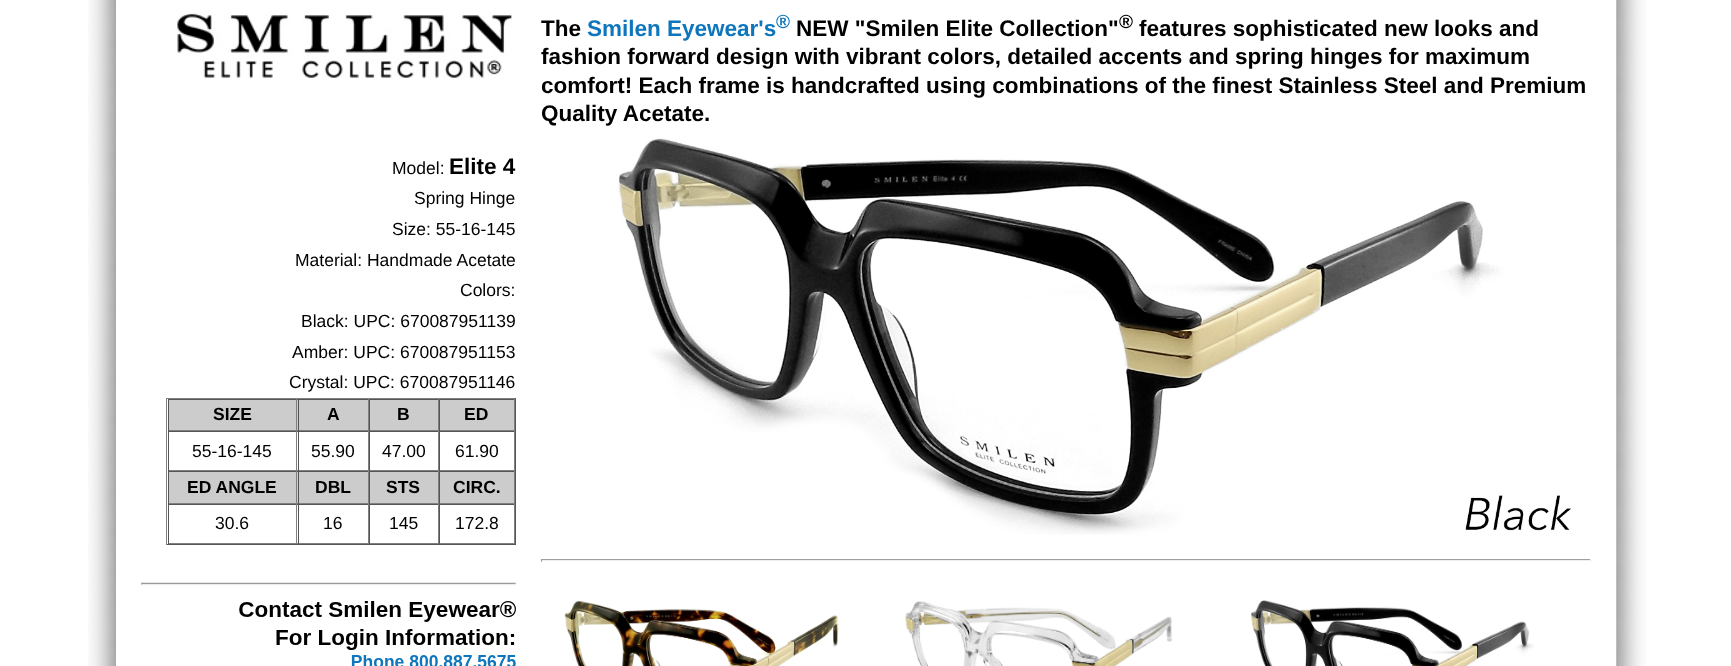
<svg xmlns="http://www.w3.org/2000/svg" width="1731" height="666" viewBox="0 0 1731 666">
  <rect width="100%" height="100%" fill="#fff"/>
  <image x="88" y="0" width="28" height="666" href="img/1.png"/>
  <image x="177" y="13" width="335" height="65" href="img/2.png"/>
  <path d="M166 398h350v1H166z" fill="#808080"/>
  <path d="M515 398h1v147H515z" fill="#555"/>
  <path d="M166 544h350v1H166z" fill="#555"/>
  <path d="M166 398h1v147H166z" fill="#808080"/>
  <path d="M169 400h345v30H169z" fill="#ccc"/>
  <path d="M168 399h347v1H168z" fill="#555"/>
  <path d="M296 399h1v32H296z" fill="#808080"/>
  <path d="M168 430h130v1H168z" fill="#808080"/>
  <path d="M168 399h1v32H168z" fill="#555"/>
  <path d="M368 399h1v32H368z" fill="#808080"/>
  <path d="M298 430h71v1H298z" fill="#808080"/>
  <path d="M298 399h1v32H298z" fill="#555"/>
  <path d="M438 399h1v32H438z" fill="#808080"/>
  <path d="M369 430h70v1H369z" fill="#808080"/>
  <path d="M369 399h1v32H369z" fill="#555"/>
  <path d="M514 399h1v32H514z" fill="#808080"/>
  <path d="M439 430h76v1H439z" fill="#808080"/>
  <path d="M439 399h1v32H439z" fill="#555"/>
  <path d="M168 431h347v1H168z" fill="#555"/>
  <path d="M296 431h1v40H296z" fill="#808080"/>
  <path d="M168 470h130v1H168z" fill="#808080"/>
  <path d="M168 431h1v40H168z" fill="#555"/>
  <path d="M368 431h1v40H368z" fill="#808080"/>
  <path d="M298 470h71v1H298z" fill="#808080"/>
  <path d="M298 431h1v40H298z" fill="#555"/>
  <path d="M438 431h1v40H438z" fill="#808080"/>
  <path d="M369 470h70v1H369z" fill="#808080"/>
  <path d="M369 431h1v40H369z" fill="#555"/>
  <path d="M514 431h1v40H514z" fill="#808080"/>
  <path d="M439 470h76v1H439z" fill="#808080"/>
  <path d="M439 431h1v40H439z" fill="#555"/>
  <path d="M169 472h345v31H169z" fill="#ccc"/>
  <path d="M168 471h347v1H168z" fill="#555"/>
  <path d="M296 471h1v33H296z" fill="#808080"/>
  <path d="M168 503h130v1H168z" fill="#808080"/>
  <path d="M168 471h1v33H168z" fill="#555"/>
  <path d="M368 471h1v33H368z" fill="#808080"/>
  <path d="M298 503h71v1H298z" fill="#808080"/>
  <path d="M298 471h1v33H298z" fill="#555"/>
  <path d="M438 471h1v33H438z" fill="#808080"/>
  <path d="M369 503h70v1H369z" fill="#808080"/>
  <path d="M369 471h1v33H369z" fill="#555"/>
  <path d="M514 471h1v33H514z" fill="#808080"/>
  <path d="M439 503h76v1H439z" fill="#808080"/>
  <path d="M439 471h1v33H439z" fill="#555"/>
  <path d="M168 504h347v1H168z" fill="#555"/>
  <path d="M296 504h1v40H296z" fill="#808080"/>
  <path d="M168 543h130v1H168z" fill="#808080"/>
  <path d="M168 504h1v40H168z" fill="#555"/>
  <path d="M368 504h1v40H368z" fill="#808080"/>
  <path d="M298 543h71v1H298z" fill="#808080"/>
  <path d="M298 504h1v40H298z" fill="#555"/>
  <path d="M438 504h1v40H438z" fill="#808080"/>
  <path d="M369 543h70v1H369z" fill="#808080"/>
  <path d="M369 504h1v40H369z" fill="#555"/>
  <path d="M514 504h1v40H514z" fill="#808080"/>
  <path d="M439 543h76v1H439z" fill="#808080"/>
  <path d="M439 504h1v40H439z" fill="#555"/>
  <image x="141" y="582" width="376" height="84" href="img/3.png"/>
  <image x="617" y="138" width="955" height="397" href="img/4.png"/>
  <path d="M541 559h1050v1H541z" fill="#9f9f9f"/>
  <path d="M1590 559h1v3H1590z" fill="#eee"/>
  <path d="M541 560h1050v1H541z" fill="#eee"/>
  <path d="M541 559h1v3H541z" fill="#9f9f9f"/>
  <image x="564" y="600" width="276" height="66" href="img/5.png"/>
  <image x="905" y="601" width="268" height="65" href="img/6.png"/>
  <image x="1251" y="600" width="284" height="66" href="img/7.png"/>
  <image x="1616" y="0" width="30" height="666" href="img/8.png"/>
  <text x="541" y="36" font-family="Liberation Sans" font-size="22.5" font-weight="bold" fill="#000">The</text>
  <text x="587" y="36" font-family="Liberation Sans" font-size="22.5" font-weight="bold" fill="#0e76bc">Smilen Eyewear's</text>
  <text x="776" y="28" font-family="Liberation Sans" font-size="19" font-weight="bold" fill="#0e76bc">®</text>
  <text x="796" y="36" font-family="Liberation Sans" font-size="22.5" font-weight="bold" fill="#000">NEW "Smilen Elite Collection"</text>
  <text x="1119" y="28" font-family="Liberation Sans" font-size="19" font-weight="bold" fill="#000">®</text>
  <g font-family="Liberation Sans" font-size="22.5" font-weight="bold" fill="#000">
    <text x="1139" y="36">features sophisticated new looks and</text>
    <text x="541" y="64">fashion forward design with vibrant colors, detailed accents and spring hinges for maximum</text>
    <text x="541" y="93">comfort! Each frame is handcrafted using combinations of the finest Stainless Steel and Premium</text>
    <text x="541" y="121">Quality Acetate.</text>
  </g>
  <text x="392" y="174" font-family="Liberation Sans" font-size="17.5" fill="#000">Model:</text>
  <text x="449" y="174" font-family="Liberation Sans" font-size="22.5" font-weight="bold" fill="#000">Elite 4</text>
  <g font-family="Liberation Sans" font-size="17.5" fill="#000">
    <text x="414" y="204">Spring Hinge</text>
    <text x="392" y="235">Size: 55-16-145</text>
    <text x="295" y="266">Material: Handmade Acetate</text>
    <text x="460" y="296">Colors:</text>
    <text x="301" y="327">Black: UPC: 670087951139</text>
    <text x="292" y="358">Amber: UPC: 670087951153</text>
    <text x="289" y="388">Crystal: UPC: 670087951146</text>
  </g>
  <g font-family="Liberation Sans" font-size="17.5" font-weight="bold" fill="#000">
    <text x="213" y="420">SIZE</text>
    <text x="327" y="420">A</text>
    <text x="397" y="420">B</text>
    <text x="464" y="420">ED</text>
  </g>
  <g font-family="Liberation Sans" font-size="17.5" fill="#000">
    <text x="192" y="457">55-16-145</text>
    <text x="311" y="457">55.90</text>
    <text x="382" y="457">47.00</text>
    <text x="455" y="457">61.90</text>
  </g>
  <g font-family="Liberation Sans" font-size="17.5" font-weight="bold" fill="#000">
    <text x="187" y="493">ED ANGLE</text>
    <text x="315" y="493">DBL</text>
    <text x="386" y="493">STS</text>
    <text x="453" y="493">CIRC.</text>
  </g>
  <g font-family="Liberation Sans" font-size="17.5" fill="#000">
    <text x="215" y="529">30.6</text>
    <text x="323" y="529">16</text>
    <text x="389" y="529">145</text>
    <text x="455" y="529">172.8</text>
  </g>
</svg>
